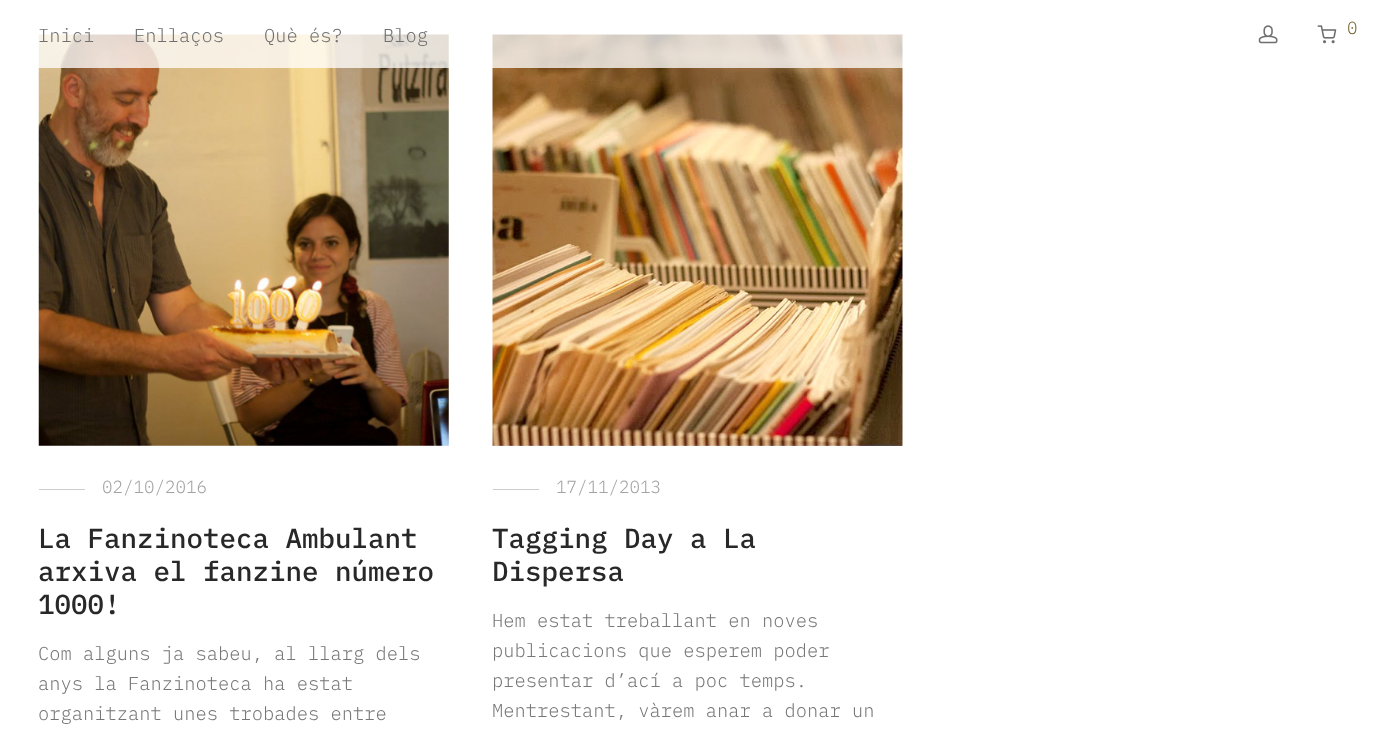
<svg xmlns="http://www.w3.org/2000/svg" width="1394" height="736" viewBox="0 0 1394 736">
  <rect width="100%" height="100%" fill="#fff"/>
  <image x="38" y="34" width="411" height="412" href="img/3.png"/>
  <image x="492" y="34" width="411" height="412" href="img/4.png"/>
  <path d="M38 34h865v34H38z" fill="#ffffffc4"/>
  <image x="1258" y="25" width="20" height="19" href="img/1.png"/>
  <image x="1317" y="25" width="20" height="19" href="img/2.png"/>
  <path d="M39 489h46v1H39z" fill="#ccc"/>
  <path d="M493 489h46v1H493z" fill="#ccc"/>
  <g font-family="IBM Plex Mono" font-size="18.75" font-weight="300" fill="#707070">
    <text x="38" y="42">Inici</text>
    <text x="134" y="42">Enllaços</text>
    <text x="264" y="42">Què és?</text>
    <text x="383" y="42">Blog</text>
  </g>
  <text x="1347" y="34" font-family="IBM Plex Mono" font-size="17.5" font-weight="300" fill="#776a37">0</text>
  <text x="102" y="493" font-family="IBM Plex Mono" font-size="17.5" font-weight="300" fill="#a3a3a3">02/10/2016</text>
  <g font-family="IBM Plex Mono" font-size="27.5" font-weight="500" fill="#282828">
    <text x="38" y="548">La Fanzinoteca Ambulant</text>
    <text x="38" y="581">arxiva el fanzine número</text>
    <text x="38" y="614">1000!</text>
  </g>
  <g font-family="IBM Plex Mono" font-size="18.75" font-weight="300" fill="#777">
    <text x="38" y="660">Com alguns ja sabeu, al llarg dels</text>
    <text x="38" y="690">anys la Fanzinoteca ha estat</text>
    <text x="38" y="720">organitzant unes trobades entre</text>
  </g>
  <text x="556" y="493" font-family="IBM Plex Mono" font-size="17.5" font-weight="300" fill="#a3a3a3">17/11/2013</text>
  <g font-family="IBM Plex Mono" font-size="27.5" font-weight="500" fill="#282828">
    <text x="492" y="548">Tagging Day a La</text>
    <text x="492" y="581">Dispersa</text>
  </g>
  <g font-family="IBM Plex Mono" font-size="18.75" font-weight="300" fill="#777">
    <text x="492" y="627">Hem estat treballant en noves</text>
    <text x="492" y="657">publicacions que esperem poder</text>
    <text x="492" y="687">presentar d’ací a poc temps.</text>
    <text x="492" y="717">Mentrestant, vàrem anar a donar un</text>
  </g>
</svg>
